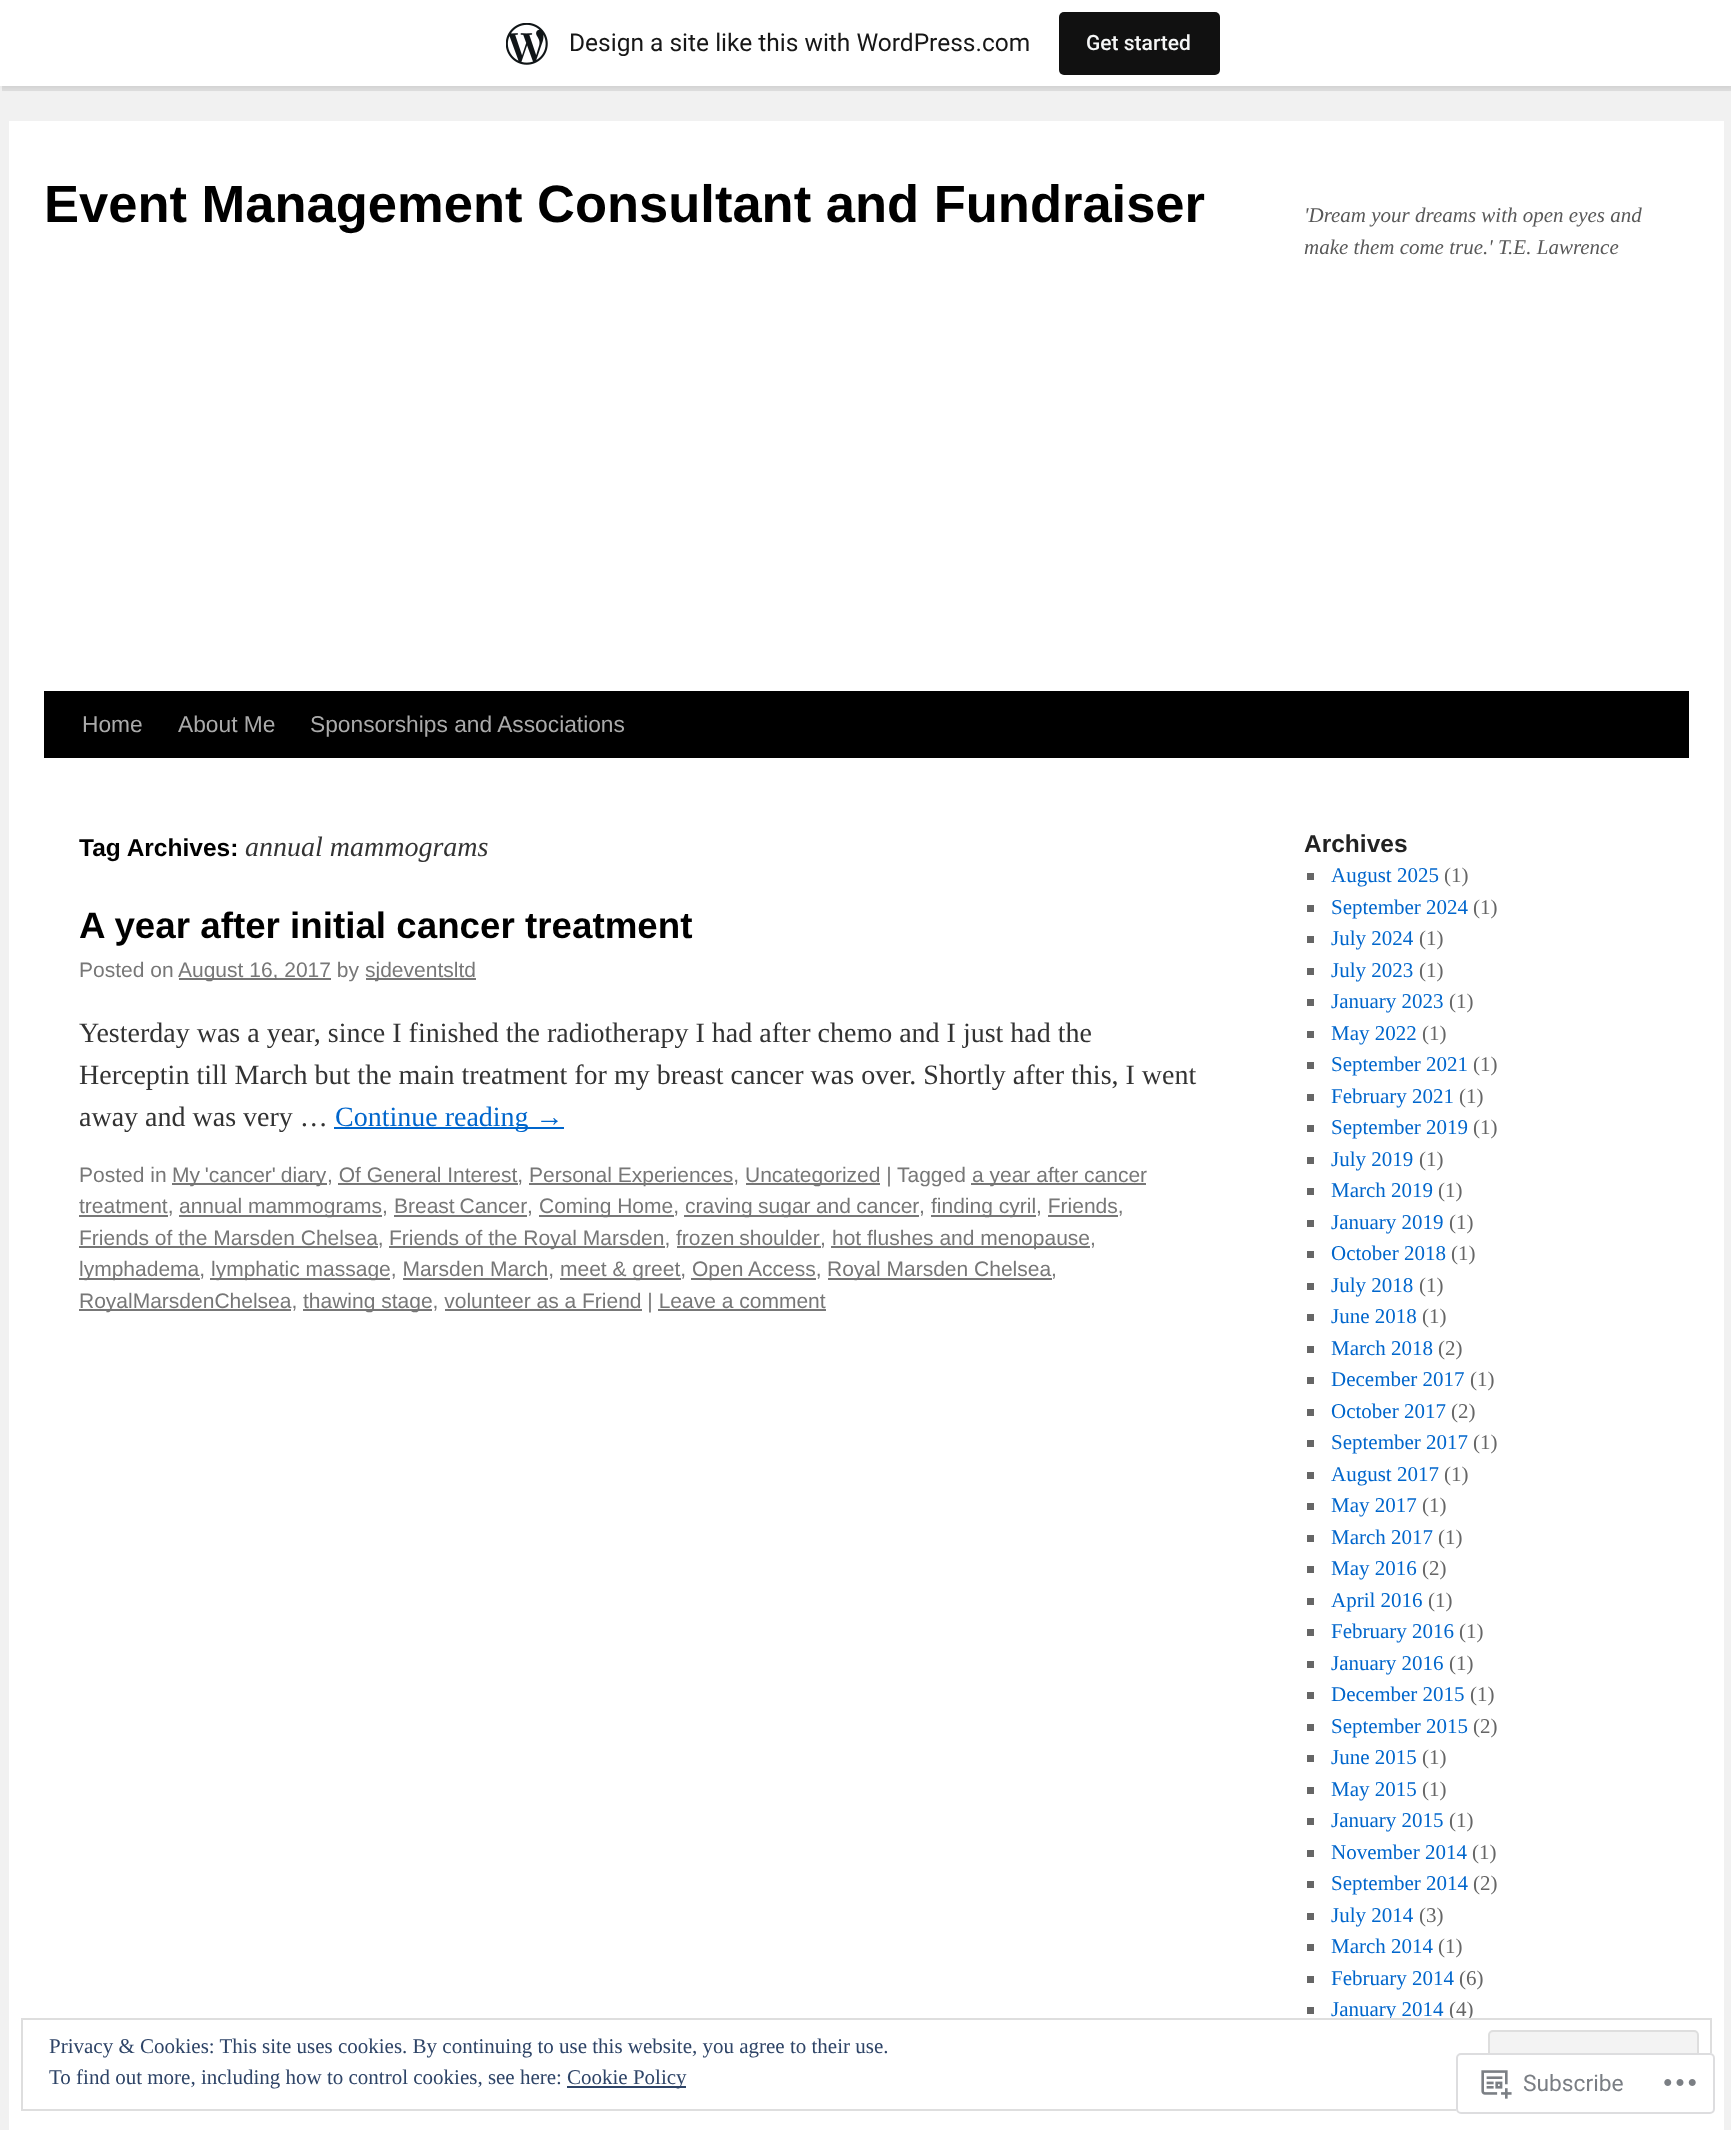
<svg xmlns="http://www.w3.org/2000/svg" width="1731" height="2130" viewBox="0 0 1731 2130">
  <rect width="100%" height="100%" fill="#f1f1f1"/>
  <path d="M0 2h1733v86H0z" fill="#0000000d" filter="blur(2px)"/>
  <path d="M2 86V91H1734V5H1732V86Z" fill="#00000014"/>
  <path d="M0 0h1731v86H0z" fill="#fff"/>
  <image x="506" y="23" width="42" height="42" href="img/1.png"/>
  <rect x="1059" y="12" width="161" height="63" rx="5" fill="#111"/>
  <path d="M9 121h1715v2009H9z" fill="#fff"/>
  <path d="M44 691h1645v67H44z" fill="#000"/>
  <path d="M179 978h152v2H179z" fill="#777"/>
  <path d="M366 978h110v2H366z" fill="#777"/>
  <path d="M334 1127h230v2H334z" fill="#06c"/>
  <path d="M172 1183h155v2H172z" fill="#777"/>
  <path d="M338 1183h180v2H338z" fill="#777"/>
  <path d="M529 1183h204v2H529z" fill="#777"/>
  <path d="M746 1183h134v2H746z" fill="#777"/>
  <path d="M971 1183h175v2H971z" fill="#777"/>
  <path d="M79 1215h89v2H79z" fill="#777"/>
  <path d="M179 1215h203v2H179z" fill="#777"/>
  <path d="M394 1215h133v2H394z" fill="#777"/>
  <path d="M539 1215h135v2H539z" fill="#777"/>
  <path d="M684 1215h235v2H684z" fill="#777"/>
  <path d="M931 1215h105v2H931z" fill="#777"/>
  <path d="M1048 1215h70v2H1048z" fill="#777"/>
  <path d="M79 1246h299v2H79z" fill="#777"/>
  <path d="M389 1246h276v2H389z" fill="#777"/>
  <path d="M677 1246h144v2H677z" fill="#777"/>
  <path d="M831 1246h259v2H831z" fill="#777"/>
  <path d="M79 1278h121v2H79z" fill="#777"/>
  <path d="M210 1278h180v2H210z" fill="#777"/>
  <path d="M403 1278h145v2H403z" fill="#777"/>
  <path d="M560 1278h121v2H560z" fill="#777"/>
  <path d="M691 1278h125v2H691z" fill="#777"/>
  <path d="M828 1278h224v2H828z" fill="#777"/>
  <path d="M79 1309h212v2H79z" fill="#777"/>
  <path d="M303 1309h129v2H303z" fill="#777"/>
  <path d="M445 1309h197v2H445z" fill="#777"/>
  <path d="M658 1309h168v2H658z" fill="#777"/>
  <path d="M1307 873h7v7H1307z" fill="#666"/>
  <path d="M1307 905h7v7H1307z" fill="#666"/>
  <path d="M1307 936h7v7H1307z" fill="#666"/>
  <path d="M1307 968h7v7H1307z" fill="#666"/>
  <path d="M1307 999h7v7H1307z" fill="#666"/>
  <path d="M1307 1031h7v7H1307z" fill="#666"/>
  <path d="M1307 1062h7v7H1307z" fill="#666"/>
  <path d="M1307 1094h7v7H1307z" fill="#666"/>
  <path d="M1307 1125h7v7H1307z" fill="#666"/>
  <path d="M1307 1157h7v7H1307z" fill="#666"/>
  <path d="M1307 1188h7v7H1307z" fill="#666"/>
  <path d="M1307 1220h7v7H1307z" fill="#666"/>
  <path d="M1307 1251h7v7H1307z" fill="#666"/>
  <path d="M1307 1283h7v7H1307z" fill="#666"/>
  <path d="M1307 1314h7v7H1307z" fill="#666"/>
  <path d="M1307 1346h7v7H1307z" fill="#666"/>
  <path d="M1307 1377h7v7H1307z" fill="#666"/>
  <path d="M1307 1409h7v7H1307z" fill="#666"/>
  <path d="M1307 1440h7v7H1307z" fill="#666"/>
  <path d="M1307 1472h7v7H1307z" fill="#666"/>
  <path d="M1307 1503h7v7H1307z" fill="#666"/>
  <path d="M1307 1535h7v7H1307z" fill="#666"/>
  <path d="M1307 1566h7v7H1307z" fill="#666"/>
  <path d="M1307 1598h7v7H1307z" fill="#666"/>
  <path d="M1307 1629h7v7H1307z" fill="#666"/>
  <path d="M1307 1661h7v7H1307z" fill="#666"/>
  <path d="M1307 1692h7v7H1307z" fill="#666"/>
  <path d="M1307 1724h7v7H1307z" fill="#666"/>
  <path d="M1307 1755h7v7H1307z" fill="#666"/>
  <path d="M1307 1787h7v7H1307z" fill="#666"/>
  <path d="M1307 1818h7v7H1307z" fill="#666"/>
  <path d="M1307 1850h7v7H1307z" fill="#666"/>
  <path d="M1307 1881h7v7H1307z" fill="#666"/>
  <path d="M1307 1913h7v7H1307z" fill="#666"/>
  <path d="M1307 1944h7v7H1307z" fill="#666"/>
  <path d="M1307 1976h7v7H1307z" fill="#666"/>
  <path d="M1307 2007h7v7H1307z" fill="#666"/>
  <text x="569" y="51" font-family="Roboto" font-size="24.5" fill="#171717">Design a site like this with WordPress.com</text>
  <text x="1086" y="50" font-family="Roboto" font-size="21" font-weight="500" fill="#f6f7f7">Get started</text>
  <text x="44" y="222" font-family="Liberation Sans" font-size="52.5" font-weight="bold" fill="#000">Event Management Consultant and Fundraiser</text>
  <g font-family="Liberation Serif" font-size="21" font-style="italic" fill="#595959">
    <text x="1304" y="222">'Dream your dreams with open eyes and</text>
    <text x="1304" y="254">make them come true.' T.E. Lawrence</text>
  </g>
  <g font-family="Liberation Sans" font-size="22.75" fill="#aaa">
    <text x="82" y="732">Home</text>
    <text x="178" y="732">About Me</text>
    <text x="310" y="732">Sponsorships and Associations</text>
  </g>
  <text x="79" y="856" font-family="Liberation Sans" font-size="24.5" font-weight="bold" fill="#000">Tag Archives:</text>
  <text x="245" y="856" font-family="Liberation Serif" font-size="28" font-style="italic" fill="#333">annual mammograms</text>
  <text x="79" y="938" font-family="Liberation Sans" font-size="36.75" font-weight="bold" fill="#000">A year after initial cancer treatment</text>
  <g font-family="Liberation Sans" font-size="21" fill="#777">
    <text x="79" y="977">Posted on</text>
    <text x="178" y="977">August 16, 2017 by</text>
    <text x="365" y="977">sjdeventsltd</text>
  </g>
  <g font-family="Liberation Serif" font-size="28" fill="#333">
    <text x="79" y="1042">Yesterday was a year, since I finished the radiotherapy I had after chemo and I just had the</text>
    <text x="79" y="1084">Herceptin till March but the main treatment for my breast cancer was over. Shortly after this, I went</text>
    <text x="79" y="1126">away and was very …</text>
  </g>
  <text x="335" y="1126" font-family="Liberation Serif" font-size="28" fill="#06c">Continue reading →</text>
  <g font-family="Liberation Sans" font-size="21" fill="#777">
    <text x="79" y="1182">Posted in</text>
    <text x="172" y="1182" word-spacing="-1">My 'cancer' diary</text>
    <text x="327" y="1182">, Of General Interest,</text>
    <text x="529" y="1182">Personal Experiences,</text>
    <text x="745" y="1182">Uncategorized |</text>
    <text x="897" y="1182">Tagged</text>
    <text x="972" y="1182">a year after cancer</text>
    <text x="79" y="1213">treatment,</text>
    <text x="179" y="1213">annual mammograms,</text>
    <text x="394" y="1213" word-spacing="-1">Breast Cancer</text>
    <text x="527" y="1213">,</text>
    <text x="539" y="1213">Coming Home,</text>
    <text x="685" y="1213" word-spacing="-0.5">craving sugar and cancer</text>
    <text x="919" y="1213">,</text>
    <text x="931" y="1213">finding cyril, Friends,</text>
    <text x="79" y="1245">Friends of the Marsden Chelsea,</text>
    <text x="389" y="1245">Friends of the Royal Marsden,</text>
    <text x="676" y="1245" word-spacing="-1">frozen shoulder</text>
    <text x="820" y="1245">,</text>
    <text x="832" y="1245">hot flushes and menopause,</text>
    <text x="79" y="1276">lymphadema,</text>
    <text x="211" y="1276">lymphatic massage, Marsden March,</text>
    <text x="560" y="1276">meet &amp; greet,</text>
    <text x="692" y="1276">Open Access,</text>
    <text x="827" y="1276">Royal Marsden Chelsea,</text>
    <text x="79" y="1308">RoyalMarsdenChelsea,</text>
    <text x="303" y="1308">thawing stage, volunteer as a Friend | Leave a comment</text>
  </g>
  <text x="1304" y="852" font-family="Liberation Sans" font-size="24.5" font-weight="bold" fill="#222">Archives</text>
  <text x="1331" y="882" font-family="Liberation Serif" font-size="21" fill="#06c">August 2025</text>
  <text x="1444" y="882" font-family="Liberation Serif" font-size="21" fill="#666">(1)</text>
  <text x="1331" y="914" font-family="Liberation Serif" font-size="21" fill="#06c">September 2024</text>
  <text x="1473" y="914" font-family="Liberation Serif" font-size="21" fill="#666">(1)</text>
  <text x="1331" y="945" font-family="Liberation Serif" font-size="21" fill="#06c">July 2024</text>
  <text x="1419" y="945" font-family="Liberation Serif" font-size="21" fill="#666">(1)</text>
  <text x="1331" y="977" font-family="Liberation Serif" font-size="21" fill="#06c">July 2023</text>
  <text x="1419" y="977" font-family="Liberation Serif" font-size="21" fill="#666">(1)</text>
  <text x="1331" y="1008" font-family="Liberation Serif" font-size="21" fill="#06c">January 2023</text>
  <text x="1449" y="1008" font-family="Liberation Serif" font-size="21" fill="#666">(1)</text>
  <text x="1331" y="1040" font-family="Liberation Serif" font-size="21" fill="#06c">May 2022</text>
  <text x="1422" y="1040" font-family="Liberation Serif" font-size="21" fill="#666">(1)</text>
  <text x="1331" y="1071" font-family="Liberation Serif" font-size="21" fill="#06c">September 2021</text>
  <text x="1473" y="1071" font-family="Liberation Serif" font-size="21" fill="#666">(1)</text>
  <text x="1331" y="1103" font-family="Liberation Serif" font-size="21" fill="#06c">February 2021</text>
  <text x="1459" y="1103" font-family="Liberation Serif" font-size="21" fill="#666">(1)</text>
  <text x="1331" y="1134" font-family="Liberation Serif" font-size="21" fill="#06c">September 2019</text>
  <text x="1473" y="1134" font-family="Liberation Serif" font-size="21" fill="#666">(1)</text>
  <text x="1331" y="1166" font-family="Liberation Serif" font-size="21" fill="#06c">July 2019</text>
  <text x="1419" y="1166" font-family="Liberation Serif" font-size="21" fill="#666">(1)</text>
  <text x="1331" y="1197" font-family="Liberation Serif" font-size="21" fill="#06c">March 2019</text>
  <text x="1438" y="1197" font-family="Liberation Serif" font-size="21" fill="#666">(1)</text>
  <text x="1331" y="1229" font-family="Liberation Serif" font-size="21" fill="#06c">January 2019</text>
  <text x="1449" y="1229" font-family="Liberation Serif" font-size="21" fill="#666">(1)</text>
  <text x="1331" y="1260" font-family="Liberation Serif" font-size="21" fill="#06c">October 2018</text>
  <text x="1451" y="1260" font-family="Liberation Serif" font-size="21" fill="#666">(1)</text>
  <text x="1331" y="1292" font-family="Liberation Serif" font-size="21" fill="#06c">July 2018</text>
  <text x="1419" y="1292" font-family="Liberation Serif" font-size="21" fill="#666">(1)</text>
  <text x="1331" y="1323" font-family="Liberation Serif" font-size="21" fill="#06c">June 2018</text>
  <text x="1422" y="1323" font-family="Liberation Serif" font-size="21" fill="#666">(1)</text>
  <text x="1331" y="1355" font-family="Liberation Serif" font-size="21" fill="#06c">March 2018</text>
  <text x="1438" y="1355" font-family="Liberation Serif" font-size="21" fill="#666">(2)</text>
  <text x="1331" y="1386" font-family="Liberation Serif" font-size="21" fill="#06c">December 2017</text>
  <text x="1470" y="1386" font-family="Liberation Serif" font-size="21" fill="#666">(1)</text>
  <text x="1331" y="1418" font-family="Liberation Serif" font-size="21" fill="#06c">October 2017</text>
  <text x="1451" y="1418" font-family="Liberation Serif" font-size="21" fill="#666">(2)</text>
  <text x="1331" y="1449" font-family="Liberation Serif" font-size="21" fill="#06c">September 2017</text>
  <text x="1473" y="1449" font-family="Liberation Serif" font-size="21" fill="#666">(1)</text>
  <text x="1331" y="1481" font-family="Liberation Serif" font-size="21" fill="#06c">August 2017</text>
  <text x="1444" y="1481" font-family="Liberation Serif" font-size="21" fill="#666">(1)</text>
  <text x="1331" y="1512" font-family="Liberation Serif" font-size="21" fill="#06c">May 2017</text>
  <text x="1422" y="1512" font-family="Liberation Serif" font-size="21" fill="#666">(1)</text>
  <text x="1331" y="1544" font-family="Liberation Serif" font-size="21" fill="#06c">March 2017</text>
  <text x="1438" y="1544" font-family="Liberation Serif" font-size="21" fill="#666">(1)</text>
  <text x="1331" y="1575" font-family="Liberation Serif" font-size="21" fill="#06c">May 2016</text>
  <text x="1422" y="1575" font-family="Liberation Serif" font-size="21" fill="#666">(2)</text>
  <text x="1331" y="1607" font-family="Liberation Serif" font-size="21" fill="#06c">April 2016</text>
  <text x="1428" y="1607" font-family="Liberation Serif" font-size="21" fill="#666">(1)</text>
  <text x="1331" y="1638" font-family="Liberation Serif" font-size="21" fill="#06c">February 2016</text>
  <text x="1459" y="1638" font-family="Liberation Serif" font-size="21" fill="#666">(1)</text>
  <text x="1331" y="1670" font-family="Liberation Serif" font-size="21" fill="#06c">January 2016</text>
  <text x="1449" y="1670" font-family="Liberation Serif" font-size="21" fill="#666">(1)</text>
  <text x="1331" y="1701" font-family="Liberation Serif" font-size="21" fill="#06c">December 2015</text>
  <text x="1470" y="1701" font-family="Liberation Serif" font-size="21" fill="#666">(1)</text>
  <text x="1331" y="1733" font-family="Liberation Serif" font-size="21" fill="#06c">September 2015</text>
  <text x="1473" y="1733" font-family="Liberation Serif" font-size="21" fill="#666">(2)</text>
  <text x="1331" y="1764" font-family="Liberation Serif" font-size="21" fill="#06c">June 2015</text>
  <text x="1422" y="1764" font-family="Liberation Serif" font-size="21" fill="#666">(1)</text>
  <text x="1331" y="1796" font-family="Liberation Serif" font-size="21" fill="#06c">May 2015</text>
  <text x="1422" y="1796" font-family="Liberation Serif" font-size="21" fill="#666">(1)</text>
  <text x="1331" y="1827" font-family="Liberation Serif" font-size="21" fill="#06c">January 2015</text>
  <text x="1449" y="1827" font-family="Liberation Serif" font-size="21" fill="#666">(1)</text>
  <text x="1331" y="1859" font-family="Liberation Serif" font-size="21" fill="#06c">November 2014</text>
  <text x="1472" y="1859" font-family="Liberation Serif" font-size="21" fill="#666">(1)</text>
  <text x="1331" y="1890" font-family="Liberation Serif" font-size="21" fill="#06c">September 2014</text>
  <text x="1473" y="1890" font-family="Liberation Serif" font-size="21" fill="#666">(2)</text>
  <text x="1331" y="1922" font-family="Liberation Serif" font-size="21" fill="#06c">July 2014</text>
  <text x="1419" y="1922" font-family="Liberation Serif" font-size="21" fill="#666">(3)</text>
  <text x="1331" y="1953" font-family="Liberation Serif" font-size="21" fill="#06c">March 2014</text>
  <text x="1438" y="1953" font-family="Liberation Serif" font-size="21" fill="#666">(1)</text>
  <text x="1331" y="1985" font-family="Liberation Serif" font-size="21" fill="#06c">February 2014</text>
  <text x="1459" y="1985" font-family="Liberation Serif" font-size="21" fill="#666">(6)</text>
  <text x="1331" y="2016" font-family="Liberation Serif" font-size="21" fill="#06c">January 2014</text>
  <text x="1449" y="2016" font-family="Liberation Serif" font-size="21" fill="#666">(4)</text>
  <path d="M1386 2020h82v1H1386z" fill="#fff"/>
  <path d="M22 2019h1689v91H22z" fill="none" stroke="#dedede" stroke-width="2"/>
  <text x="49" y="2053" font-family="Liberation Serif" font-size="21" fill="#2e4467">Privacy &amp; Cookies: This site uses cookies. By continuing to use this website, you agree to their use.</text>
  <rect x="1489" y="2031" width="209" height="66" rx="4" fill="#f3f3f3" stroke="#dedede" stroke-width="2"/>
  <text x="49" y="2084" font-family="Liberation Serif" font-size="21" fill="#2e4467">To find out more, including how to control cookies, see here:</text>
  <path d="M567 2086h119v2H567z" fill="#2e4467"/>
  <text x="567" y="2084" font-family="Liberation Serif" font-size="21" fill="#2e4467">Cookie Policy</text>
  <rect x="1456" y="2053" width="259" height="61" rx="5" fill="#fffffffa"/>
  <rect x="1457" y="2054" width="257" height="59" rx="4" fill="none" stroke="#dcdcdefa" stroke-width="2"/>
  <image x="1481" y="2070" width="31" height="29" href="img/2.png"/>
  <text x="1523" y="2091" font-family="Roboto" font-size="22.75" fill="#7a7e84">Subscribe</text>
  <image x="1664" y="2079" width="32" height="7" href="img/3.png"/>
</svg>
